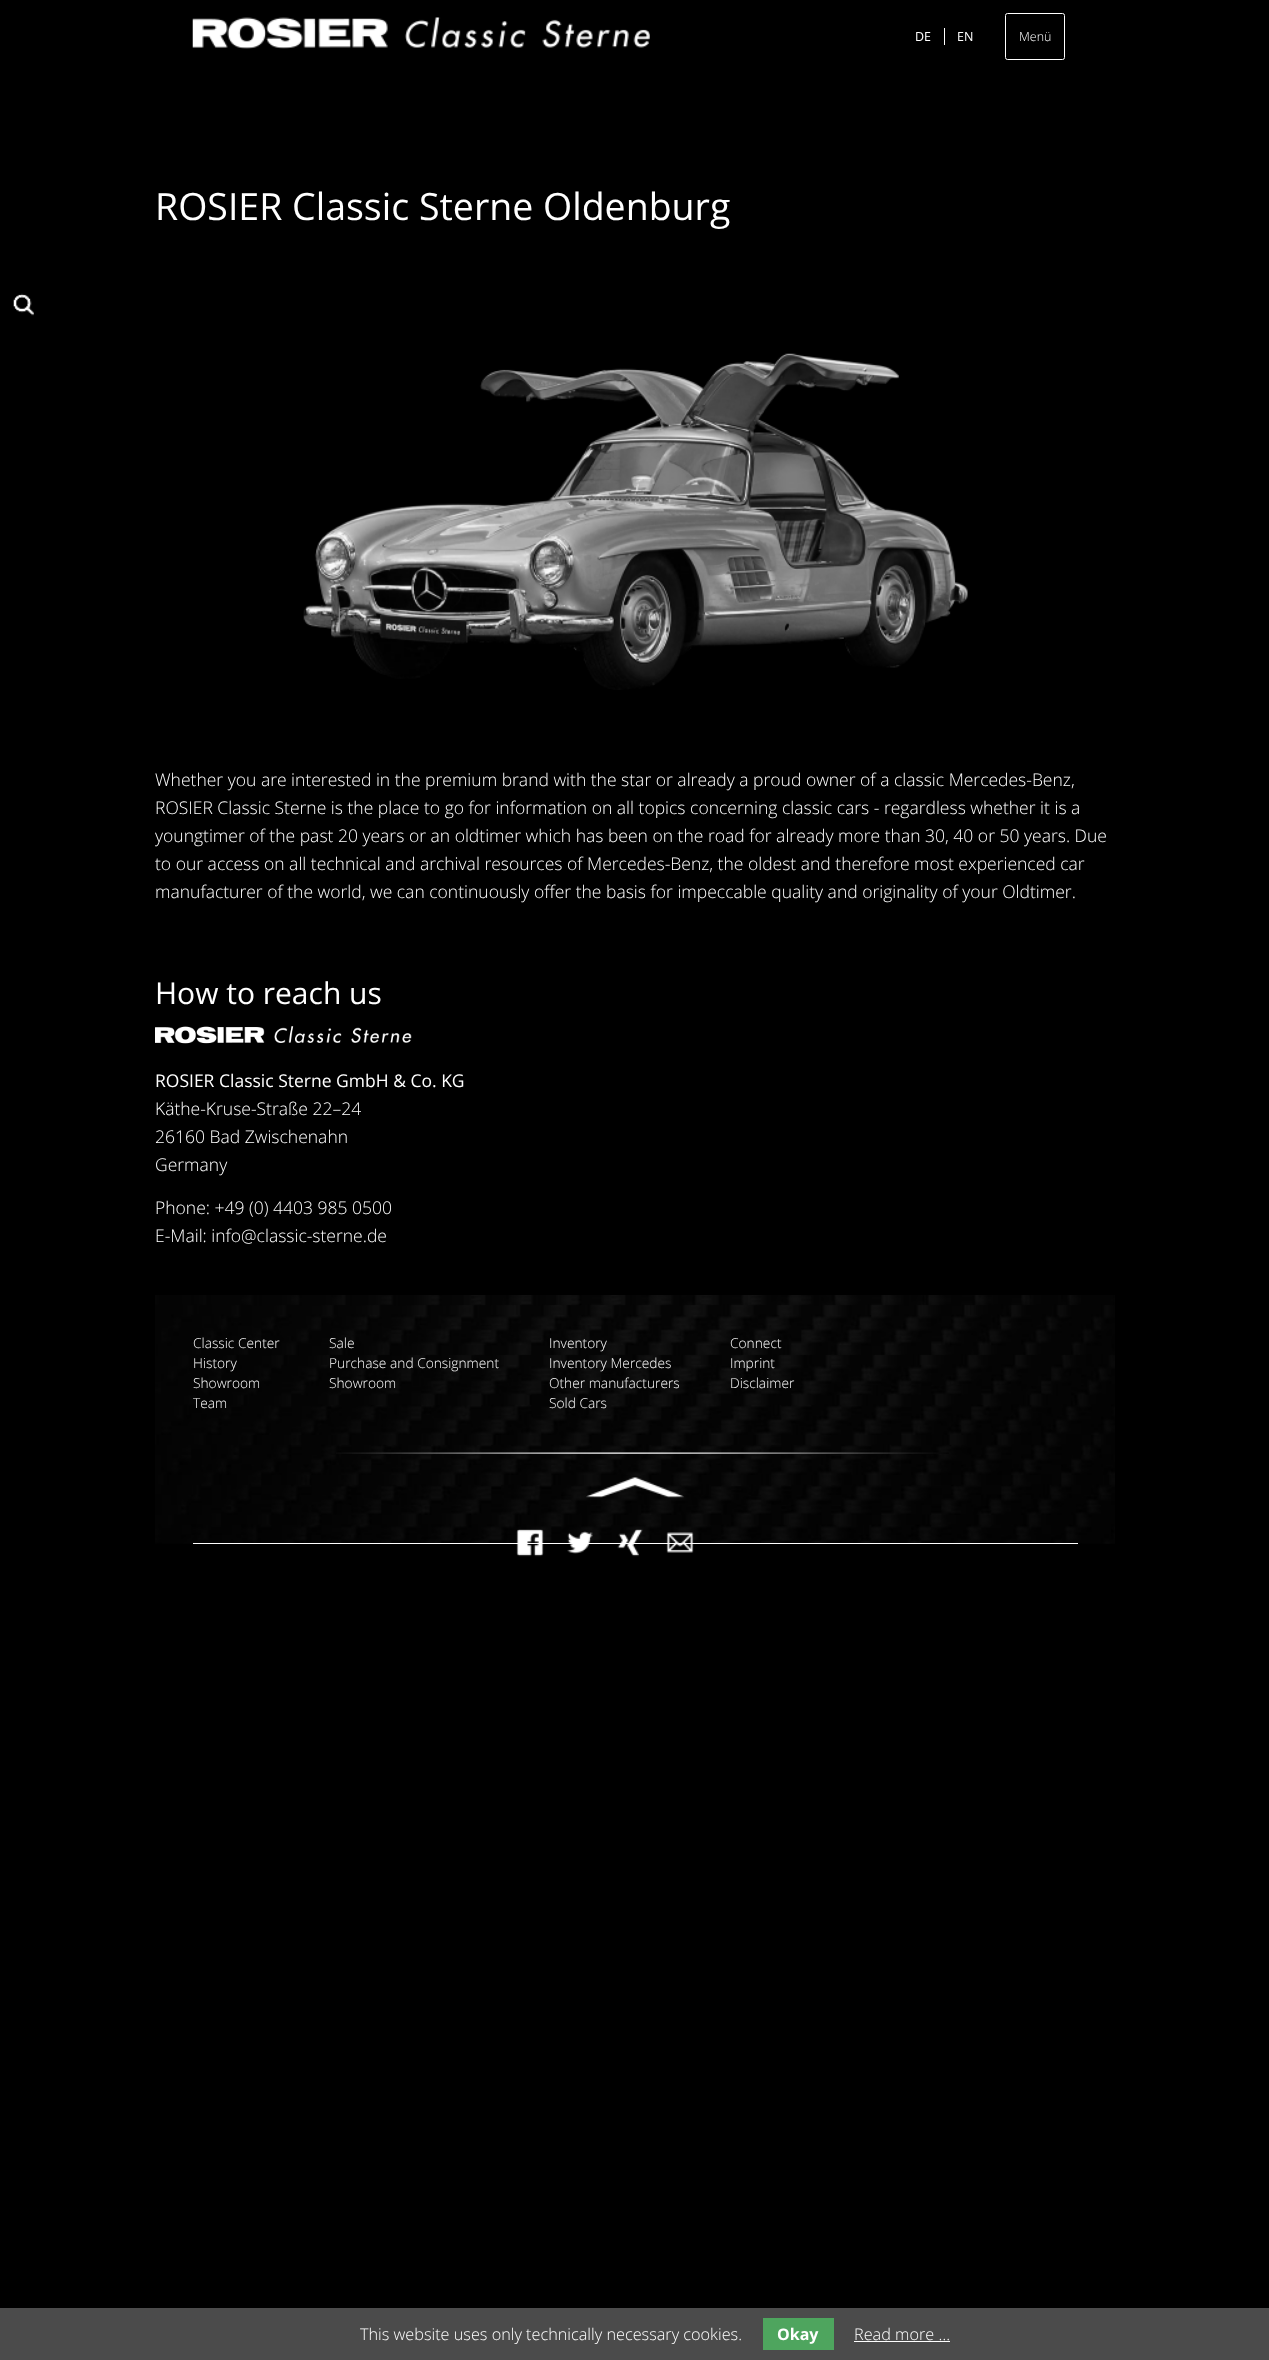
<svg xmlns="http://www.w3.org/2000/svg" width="1269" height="2360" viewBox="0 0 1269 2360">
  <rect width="100%" height="100%" fill="#000"/>
  <image x="192" y="17" width="458" height="32" href="img/1.png"/>
  <path d="M944 28h1v17H944z" fill="#fff"/>
  <rect x="1005.5" y="13.5" width="59" height="46" rx="2" fill="none" stroke="#fff"/>
  <image x="13" y="293" width="21" height="23" href="img/2.png"/>
  <image x="303" y="353" width="665" height="337" href="img/3.png"/>
  <image x="155" y="1026" width="257" height="18" href="img/4.png"/>
  <image x="155" y="1295" width="960" height="249" href="img/5.png"/>
  <image x="336" y="1452" width="613" height="2" href="img/6.png"/>
  <image x="586" y="1477" width="98" height="21" href="img/7.png"/>
  <path d="M193 1543h885v1H193z" fill="#fff"/>
  <image x="516" y="1529" width="28" height="28" href="img/8.png"/>
  <image x="567" y="1531" width="26" height="23" href="img/9.png"/>
  <image x="617" y="1529" width="26" height="28" href="img/10.png"/>
  <image x="666" y="1532" width="28" height="21" href="img/11.png"/>
  <path d="M0 2308h1269v52H0z" fill="#4b4b4b"/>
  <path d="M763 2318h71v32H763z" fill="#4ea55e"/>
  <path d="M854 2341h96v1H854z" fill="#fff"/>
  <g font-family="Open Sans" font-size="12.5" fill="#fff">
    <text x="915" y="41">DE</text>
    <text x="957" y="41">EN</text>
  </g>
  <text x="1019" y="41" font-family="Open Sans" font-size="12.5" font-weight="300" fill="#fff">Menü</text>
  <text x="155" y="220" font-family="Open Sans" font-size="37.5" fill="#fff">ROSIER Classic Sterne Oldenburg</text>
  <g font-family="Open Sans" font-size="17.5" font-weight="300" fill="#fff">
    <text x="155" y="786">Whether you are interested in the premium brand with the star or already a proud owner of a classic Mercedes-Benz,</text>
    <text x="155" y="814">ROSIER Classic Sterne is the place to go for information on all topics concerning classic cars - regardless whether it is a</text>
    <text x="155" y="842">youngtimer of the past 20 years or an oldtimer which has been on the road for already more than 30, 40 or 50 years. Due</text>
    <text x="155" y="870">to our access on all technical and archival resources of Mercedes-Benz, the oldest and therefore most experienced car</text>
    <text x="155" y="898">manufacturer of the world, we can continuously offer the basis for impeccable quality and originality of your Oldtimer.</text>
  </g>
  <text x="155" y="1004" font-family="Open Sans" font-size="30" fill="#fff">How to reach us</text>
  <text x="155" y="1087" font-family="Open Sans" font-size="17.5" fill="#fff">ROSIER Classic Sterne GmbH &amp; Co. KG</text>
  <g font-family="Open Sans" font-size="17.5" font-weight="300" fill="#fff">
    <text x="155" y="1115">Käthe-Kruse-Straße 22–24</text>
    <text x="155" y="1143">26160 Bad Zwischenahn</text>
    <text x="155" y="1171">Germany</text>
    <text x="155" y="1214">Phone: +49 (0) 4403 985 0500</text>
    <text x="155" y="1242">E-Mail: info@classic-sterne.de</text>
  </g>
  <g font-family="Open Sans" font-size="13.75" font-weight="300" fill="#fff">
    <text x="193" y="1348">Classic Center</text>
    <text x="193" y="1368">History</text>
    <text x="193" y="1388">Showroom</text>
    <text x="193" y="1408">Team</text>
    <text x="329" y="1348">Sale</text>
    <text x="329" y="1368">Purchase and Consignment</text>
    <text x="329" y="1388">Showroom</text>
    <text x="549" y="1348">Inventory</text>
    <text x="549" y="1368">Inventory Mercedes</text>
    <text x="549" y="1388">Other manufacturers</text>
    <text x="549" y="1408">Sold Cars</text>
    <text x="730" y="1348">Connect</text>
    <text x="730" y="1368">Imprint</text>
    <text x="730" y="1388">Disclaimer</text>
  </g>
  <text x="360" y="2340" font-family="Open Sans" font-size="16.25" font-weight="300" fill="#fff">This website uses only technically necessary cookies.</text>
  <text x="777" y="2340" font-family="Open Sans" font-size="16" font-weight="bold" fill="#fff">Okay</text>
  <text x="854" y="2340" font-family="Open Sans" font-size="16.25" font-weight="300" fill="#fff">Read more …</text>
</svg>
